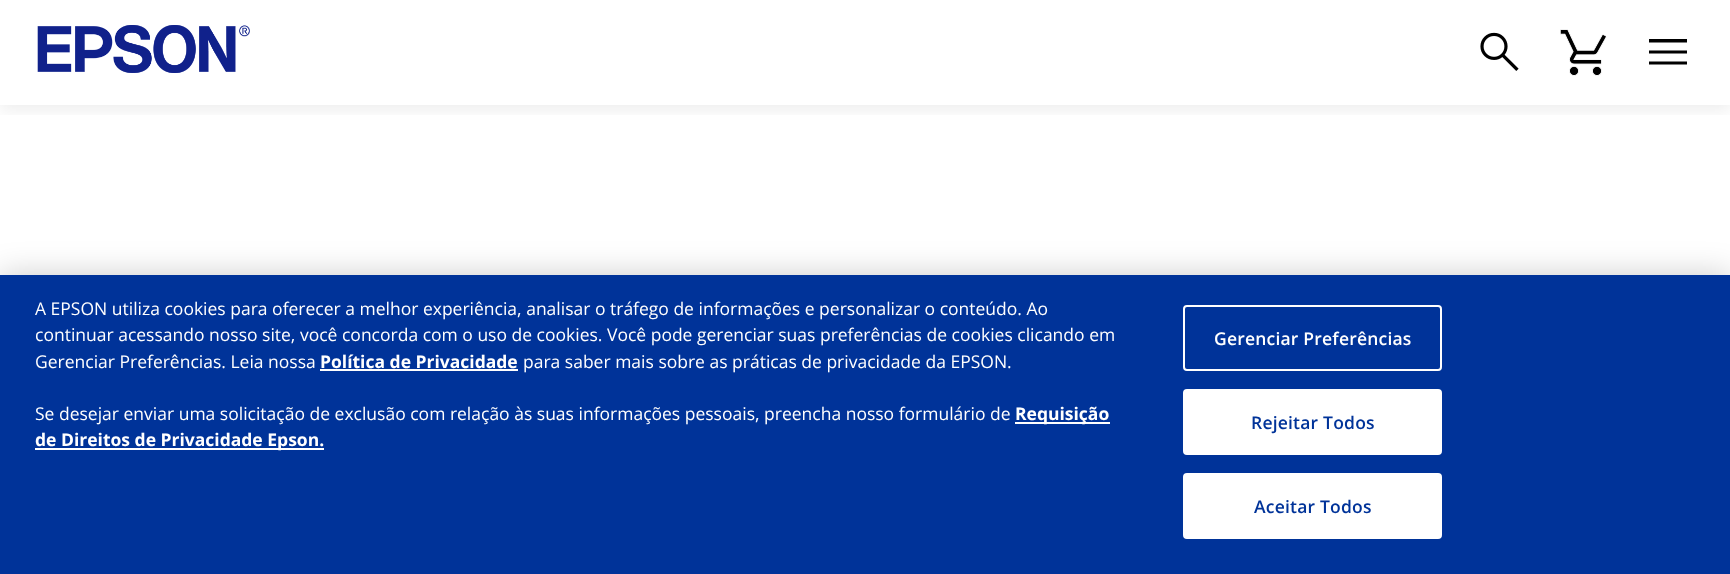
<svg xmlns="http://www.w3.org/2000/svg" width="1730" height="574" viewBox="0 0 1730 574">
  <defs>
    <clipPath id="clip1"><path d="M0 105h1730v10H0z"/></clipPath>
  </defs>
  <rect width="100%" height="100%" fill="#fff"/>
  <g clip-path="url(#clip1)">
    <path d="M0 4h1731v105H0z" fill="#00000014" filter="blur(9px)"/>
  </g>
  <image x="37" y="25" width="213" height="48" href="img/1.png"/>
  <image x="1480" y="32" width="39" height="39" href="img/2.png"/>
  <image x="1560" y="29" width="47" height="47" href="img/3.png"/>
  <path d="M1649 64.5V61.5H1687V64.5ZM1649 53.5V50.5H1687V53.5ZM1649 42.5V39H1687V42.5Z" fill="#000"/>
  <path d="M0 275h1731v299H0z" fill="#00000033" filter="blur(16px)"/>
  <path d="M0 275h1730v299H0z" fill="#039"/>
  <path d="M320 369h198v2H320z" fill="#fff"/>
  <path d="M1015 422h95v2H1015z" fill="#fff"/>
  <path d="M35 448h289v2H35z" fill="#fff"/>
  <rect x="1184" y="306" width="257" height="64" rx="3" fill="none" stroke="#fff" stroke-width="2"/>
  <rect x="1184" y="390" width="257" height="64" rx="3" fill="#fff" stroke="#fff" stroke-width="2"/>
  <rect x="1184" y="474" width="257" height="64" rx="3" fill="#fff" stroke="#fff" stroke-width="2"/>
  <g font-family="Open Sans" font-size="17.5" fill="#fff">
    <text x="35" y="315">A EPSON utiliza cookies para oferecer a melhor experiência, analisar o tráfego de informações e personalizar o conteúdo. Ao</text>
    <text x="35" y="341">continuar acessando nosso site, você concorda com o uso de cookies. Você pode gerenciar suas preferências de cookies clicando em</text>
    <text x="35" y="368">Gerenciar Preferências. Leia nossa</text>
  </g>
  <text x="320" y="368" font-family="Open Sans" font-size="17.5" font-weight="bold" fill="#fff">Política de Privacidade</text>
  <g font-family="Open Sans" font-size="17.5" fill="#fff">
    <text x="523" y="368">para saber mais sobre as práticas de privacidade da EPSON.</text>
    <text x="35" y="420">Se desejar enviar uma solicitação de exclusão com relação às suas informações pessoais, preencha nosso formulário de</text>
  </g>
  <g font-family="Open Sans" font-size="17.5" font-weight="bold" fill="#fff">
    <text x="1015" y="420">Requisição</text>
    <text x="35" y="446">de Direitos de Privacidade Epson.</text>
  </g>
  <text x="1214" y="345" font-family="Open Sans" font-size="17.5" font-weight="600" letter-spacing="0.2" fill="#fff">Gerenciar Preferências</text>
  <g font-family="Open Sans" font-size="17.5" font-weight="600" letter-spacing="0.2" fill="#039">
    <text x="1251" y="429">Rejeitar Todos</text>
    <text x="1254" y="513">Aceitar Todos</text>
  </g>
</svg>
